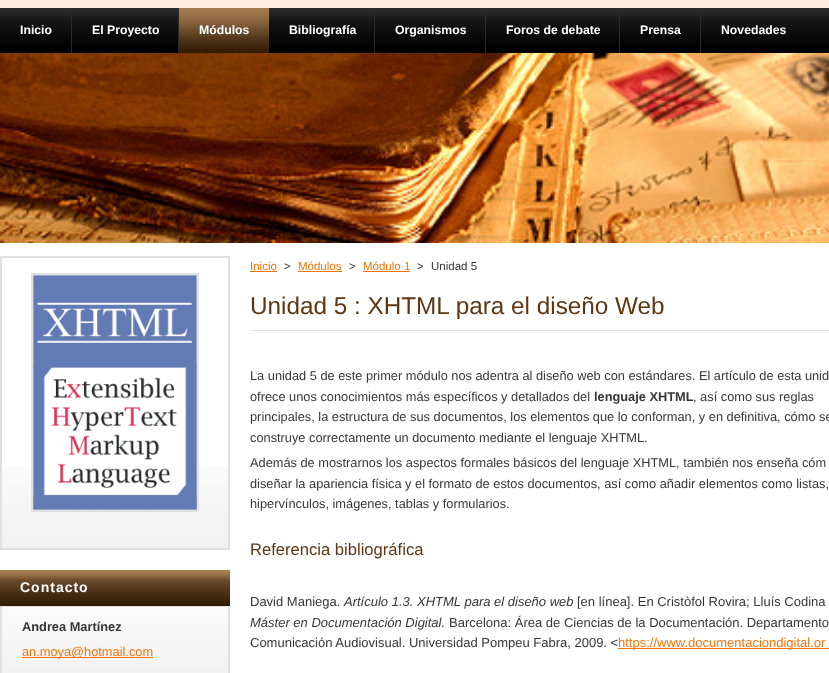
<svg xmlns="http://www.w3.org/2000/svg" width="829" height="673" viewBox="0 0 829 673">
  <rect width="100%" height="100%" fill="#fff"/>
  <image x="0" y="0" width="829" height="8" href="img/1.png"/>
  <path d="M0 44h829v9H0z" fill="#000"/>
  <image x="0" y="8" width="829" height="36" href="img/2.png"/>
  <path d="M71 13h1v40H71z" fill="#2a2a2a"/>
  <path d="M178 13h1v40H178z" fill="#2a2a2a"/>
  <image x="179" y="8" width="90" height="45" href="img/3.png"/>
  <path d="M374 13h1v40H374z" fill="#2a2a2a"/>
  <path d="M485 13h1v40H485z" fill="#2a2a2a"/>
  <path d="M619 13h1v40H619z" fill="#2a2a2a"/>
  <path d="M700 13h1v40H700z" fill="#2a2a2a"/>
  <image x="0" y="53" width="829" height="190" href="img/4.png"/>
  <image x="2" y="467" width="226" height="81" href="img/5.png"/>
  <path d="M1 257h228v292H1z" fill="none" stroke="#e1e1e1" stroke-width="2"/>
  <path d="M32 274h166v237H32z" fill="none" stroke="#e1e1e1" stroke-width="2"/>
  <image x="33" y="275" width="164" height="235" href="img/6.png"/>
  <image x="2" y="607" width="226" height="66" href="img/7.png"/>
  <path d="M0 570h230v3H0z" fill="#a67c52"/>
  <image x="0" y="573" width="230" height="33" href="img/8.png"/>
  <path d="M0 606h230v1H0z" fill="#e1e1e1"/>
  <path d="M228 607h2v66H228z" fill="#e1e1e1"/>
  <path d="M0 607h2v66H0z" fill="#e1e1e1"/>
  <path d="M22 657h131v1H22z" fill="#f87307"/>
  <path d="M250 271h27v1H250z" fill="#f87307"/>
  <path d="M298 271h44v1H298z" fill="#f87307"/>
  <path d="M363 271h47v1H363z" fill="#f87307"/>
  <path d="M250 330h579v1H250z" fill="#e1e1e1"/>
  <path d="M618 648h211v1H618z" fill="#f87307"/>
  <g font-family="Liberation Sans" font-size="12.25" font-weight="bold" fill="#fff">
    <text x="20" y="34">Inicio</text>
    <text x="92" y="34">El Proyecto</text>
    <text x="199" y="34">Módulos</text>
    <text x="289" y="34">Bibliografía</text>
    <text x="395" y="34">Organismos</text>
    <text x="506" y="34">Foros de debate</text>
    <text x="640" y="34">Prensa</text>
    <text x="721" y="34">Novedades</text>
  </g>
  <text x="20" y="592" font-family="Liberation Sans" font-size="14" font-weight="bold" letter-spacing="1" fill="#fff">Contacto</text>
  <text x="22" y="631" font-family="Liberation Sans" font-size="12.8" font-weight="bold" fill="#363636">Andrea Martínez</text>
  <text x="22" y="656" font-family="Liberation Sans" font-size="12.8" fill="#f87307">an.moya@hotmail.com</text>
  <text x="250" y="270" font-family="Liberation Sans" font-size="11.5" fill="#f87307">Inicio</text>
  <text x="284" y="270" font-family="Liberation Sans" font-size="11.5" fill="#363636">&gt;</text>
  <text x="298" y="270" font-family="Liberation Sans" font-size="11.5" fill="#f87307">Módulos</text>
  <text x="349" y="270" font-family="Liberation Sans" font-size="11.5" fill="#363636">&gt;</text>
  <text x="363" y="270" font-family="Liberation Sans" font-size="11.5" fill="#f87307">Módulo 1</text>
  <g font-family="Liberation Sans" font-size="11.5" fill="#363636">
    <text x="417" y="270">&gt;</text>
    <text x="431" y="270">Unidad 5</text>
  </g>
  <text x="250" y="314" font-family="Liberation Sans" font-size="24.3" fill="#5e3612">Unidad 5 : XHTML para el diseño Web</text>
  <g font-family="Liberation Sans" font-size="12.8" fill="#363636">
    <text x="250" y="380">La unidad 5 de este primer módulo nos adentra al diseño web con estándares. El artículo de esta unid</text>
    <text x="250" y="401">ofrece unos conocimientos más específicos y detallados del</text>
  </g>
  <text x="594" y="401" font-family="Liberation Sans" font-size="12.8" font-weight="bold" fill="#363636">lenguaje XHTML</text>
  <g font-family="Liberation Sans" font-size="12.8" fill="#363636">
    <text x="693" y="401">, así como sus reglas</text>
    <text x="250" y="421">principales, la estructura de sus documentos, los elementos que lo conforman, y en definitiva, cómo se</text>
    <text x="250" y="442">construye correctamente un documento mediante el lenguaje XHTML.</text>
    <text x="250" y="467">Además de mostrarnos los aspectos formales básicos del lenguaje XHTML, también nos enseña cóm</text>
    <text x="250" y="488">diseñar la apariencia física y el formato de estos documentos, así como añadir elementos como listas,</text>
    <text x="250" y="508">hipervínculos, imágenes, tablas y formularios.</text>
  </g>
  <text x="250" y="555" font-family="Liberation Sans" font-size="16.6" fill="#5e3612">Referencia bibliográfica</text>
  <text x="250" y="606" font-family="Liberation Sans" font-size="13" fill="#363636">David Maniega.</text>
  <text x="344" y="606" font-family="Liberation Sans" font-size="13" font-style="italic" fill="#363636">Artículo 1.3. XHTML para el diseño web</text>
  <text x="577" y="606" font-family="Liberation Sans" font-size="13" fill="#363636">[en línea]. En Cristòfol Rovira; Lluís Codina</text>
  <text x="250" y="627" font-family="Liberation Sans" font-size="13" font-style="italic" fill="#363636">Máster en Documentación Digital.</text>
  <g font-family="Liberation Sans" font-size="13" fill="#363636">
    <text x="449" y="627">Barcelona: Área de Ciencias de la Documentación. Departamento</text>
    <text x="250" y="647">Comunicación Audiovisual. Universidad Pompeu Fabra, 2009. &lt;</text>
  </g>
  <text x="618" y="647" font-family="Liberation Sans" font-size="13" fill="#f87307">https://www.documentaciondigital.or</text>
</svg>
